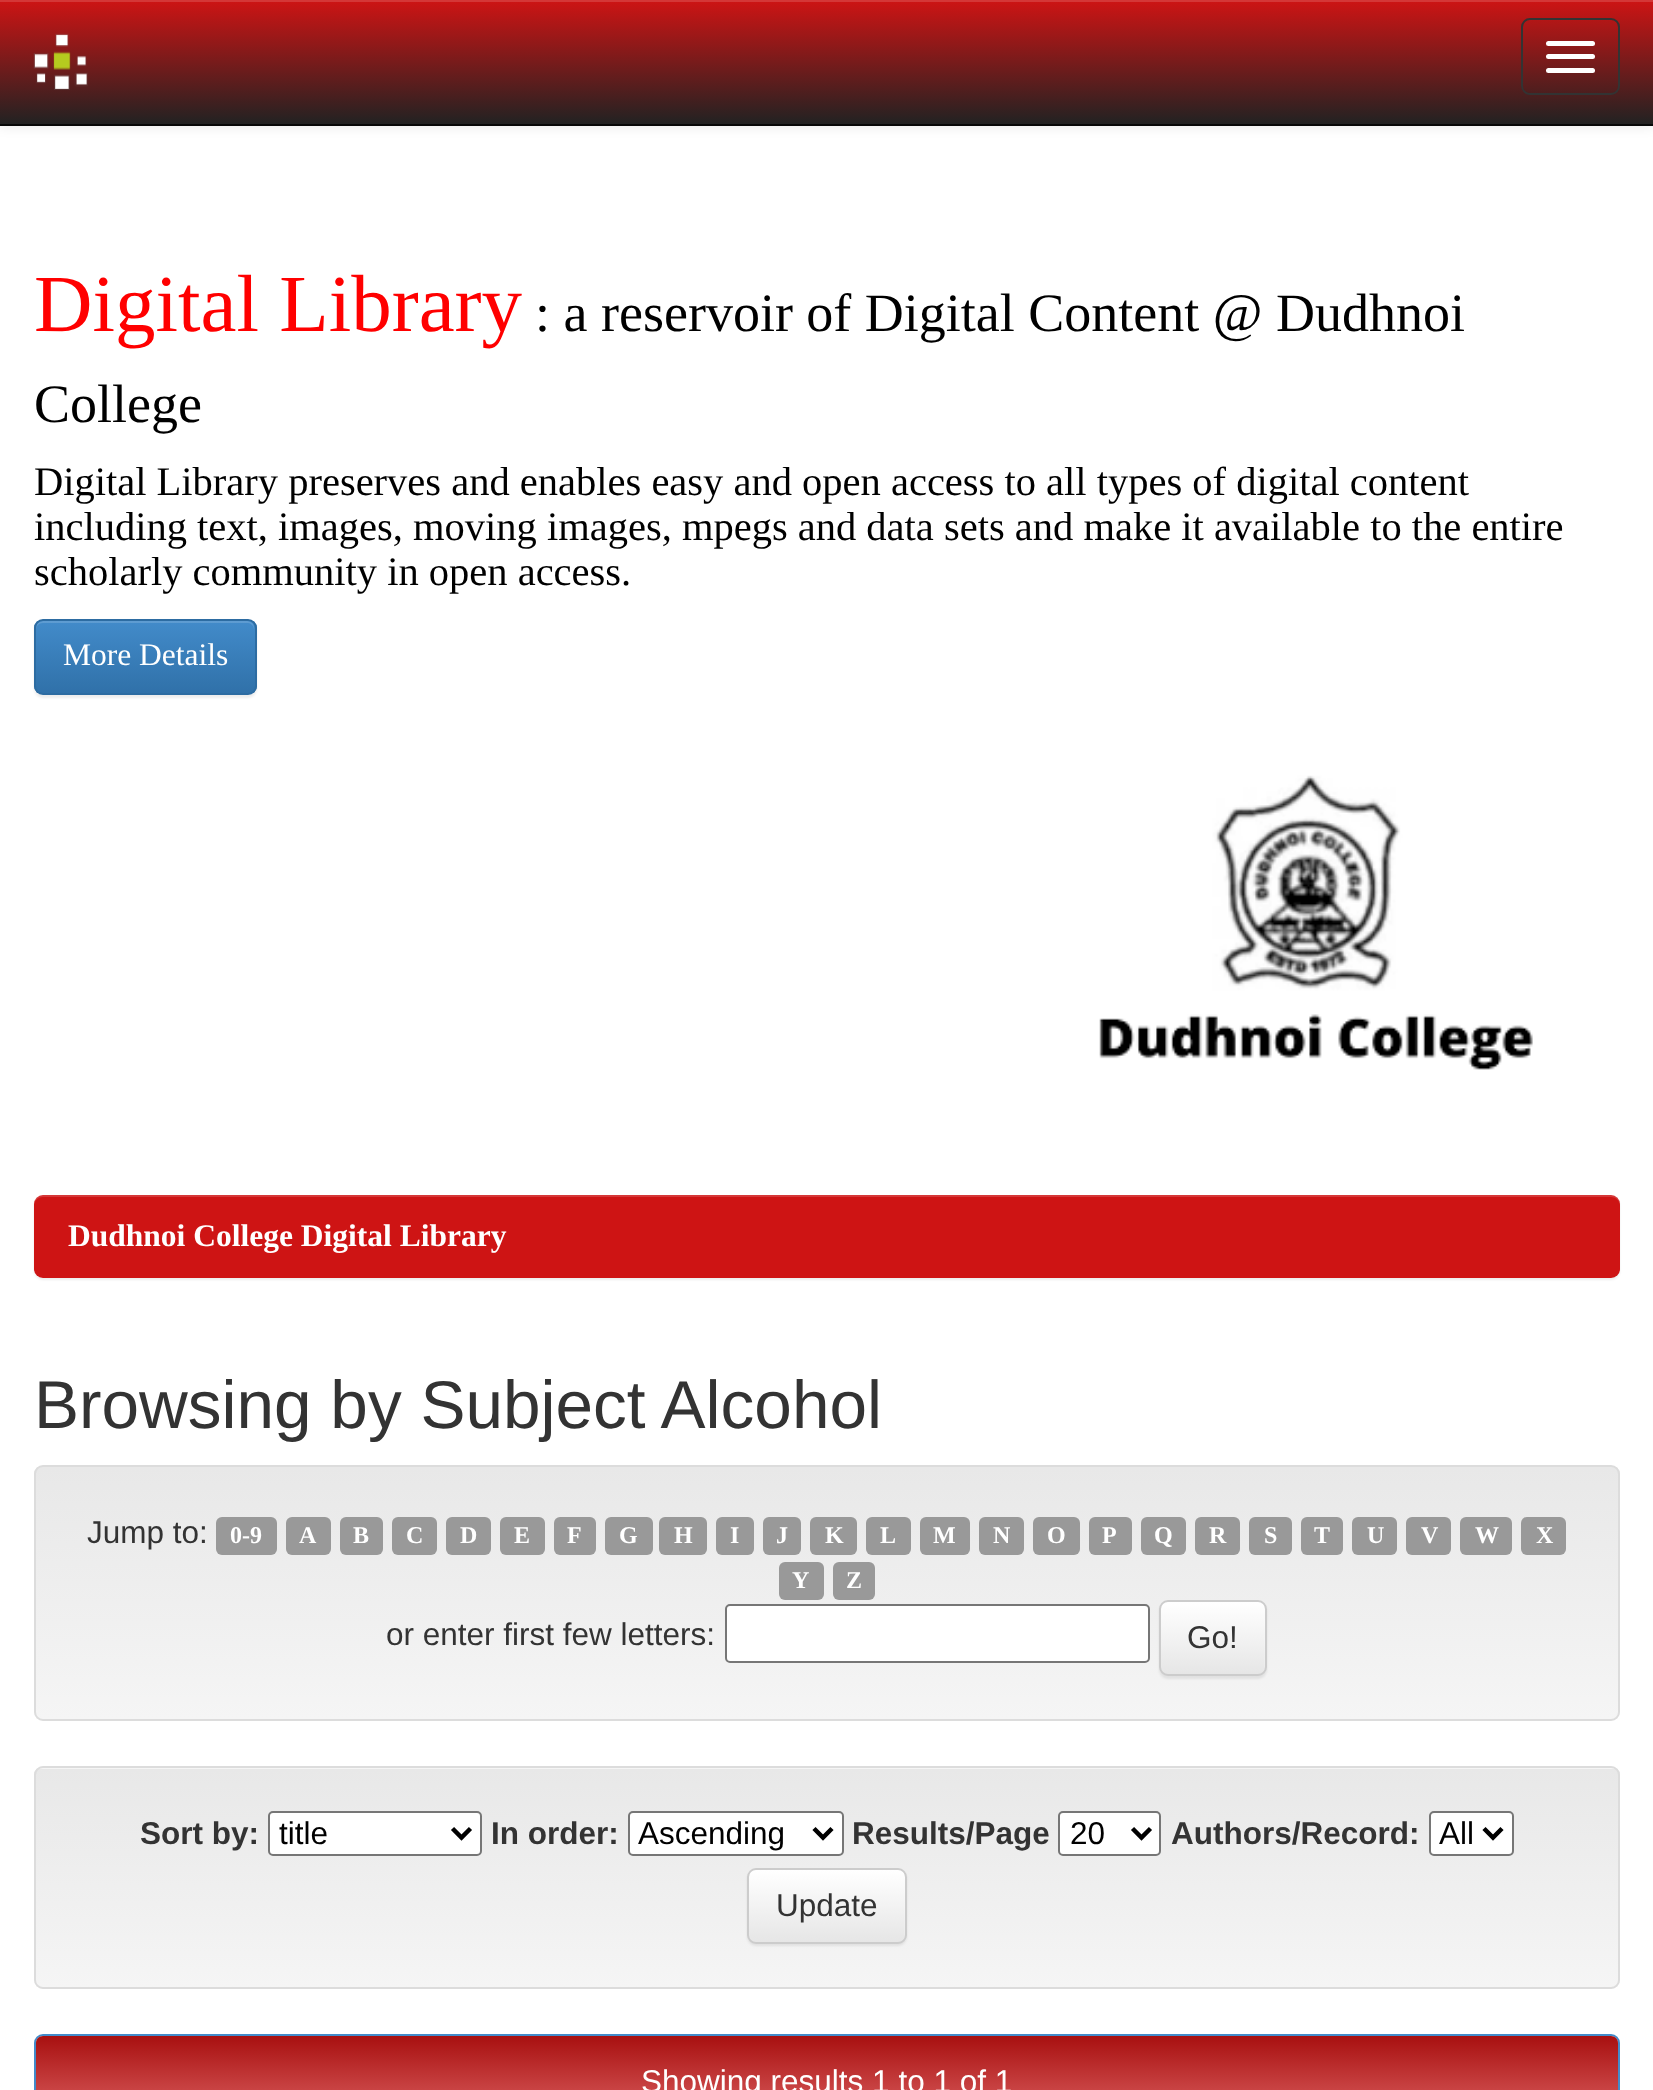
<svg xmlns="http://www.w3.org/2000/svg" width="1653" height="2090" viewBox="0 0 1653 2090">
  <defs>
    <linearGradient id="g1" gradientUnits="userSpaceOnUse" x1="827" y1="0" x2="827" y2="124"><stop offset="0" stop-color="#ce1414"/><stop offset="1" stop-color="#222"/></linearGradient>
    <clipPath id="clip1"><rect x="34" y="619" width="223" height="76" rx="9"/></clipPath>
    <linearGradient id="g2" gradientUnits="userSpaceOnUse" x1="145" y1="621" x2="145" y2="693"><stop offset="0" stop-color="#428bca"/><stop offset="1" stop-color="#3071a9"/></linearGradient>
    <clipPath id="clip2"><rect x="34" y="1465" width="1586" height="256" rx="9"/></clipPath>
    <linearGradient id="g3" gradientUnits="userSpaceOnUse" x1="827" y1="1467" x2="827" y2="1719"><stop offset="0" stop-color="#e8e8e8"/><stop offset="1" stop-color="#f5f5f5"/></linearGradient>
    <clipPath id="clip3"><rect x="1159" y="1600" width="108" height="76" rx="9"/></clipPath>
    <linearGradient id="g4" gradientUnits="userSpaceOnUse" x1="1213" y1="1602" x2="1213" y2="1674"><stop offset="0" stop-color="#fff"/><stop offset="1" stop-color="#e6e6e6"/></linearGradient>
    <clipPath id="clip4"><rect x="34" y="1766" width="1586" height="223" rx="9"/></clipPath>
    <linearGradient id="g5" gradientUnits="userSpaceOnUse" x1="827" y1="1769" x2="827" y2="1987"><stop offset="0" stop-color="#e8e8e8"/><stop offset="1" stop-color="#f5f5f5"/></linearGradient>
    <clipPath id="clip5"><rect x="747" y="1868" width="160" height="76" rx="9"/></clipPath>
    <linearGradient id="g6" gradientUnits="userSpaceOnUse" x1="827" y1="1870" x2="827" y2="1942"><stop offset="0" stop-color="#fff"/><stop offset="1" stop-color="#e6e6e6"/></linearGradient>
    <linearGradient id="g7" gradientUnits="userSpaceOnUse" x1="827" y1="2036" x2="827" y2="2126"><stop offset="0" stop-color="#a81010"/><stop offset="1" stop-color="#df6666"/></linearGradient>
  </defs>
  <rect width="100%" height="100%" fill="#fff"/>
  <path d="M0 2h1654v126H0z" fill="#00000012" filter="blur(5.5px)"/>
  <path d="M0 2h1653v122H0z" fill="url(#g1)"/>
  <path d="M0 0h1653v2H0z" fill="#d43737"/>
  <path d="M0 124h1653v2H0z" fill="#080808"/>
  <image x="33" y="33" width="55" height="57" href="img/1.png"/>
  <rect x="1522" y="19" width="97" height="75" rx="8" fill="none" stroke="#333" stroke-width="2"/>
  <rect x="1546" y="41" width="49" height="5" rx="2.5" fill="#fff"/>
  <rect x="1546" y="54" width="49" height="5" rx="2.5" fill="#fff"/>
  <rect x="1546" y="68" width="49" height="5" rx="2.5" fill="#fff"/>
  <rect x="34" y="621" width="223" height="77" rx="9" fill="#00000012" filter="blur(1px)"/>
  <g clip-path="url(#clip1)">
    <path d="M34 621h223v72H34z" fill="url(#g2)"/>
  </g>
  <path d="M43 623H248C251 623 254 626 254 630V628C254 624 251 621 247 621H43C39 621 36 624 36 628V630C36 626 39 623 43 623Z" fill="#ffffff26"/>
  <rect x="35" y="620" width="221" height="74" rx="8" fill="none" stroke="#2d6ca2" stroke-width="2"/>
  <image x="1099" y="775" width="434" height="295" href="img/2.png"/>
  <rect x="34" y="1197" width="1586" height="83" rx="9" fill="#00000012" filter="blur(1px)"/>
  <rect x="34" y="1195" width="1586" height="83" rx="9" fill="#ce1414"/>
  <path d="M43 1197H1611C1616 1197 1620 1201 1620 1206V1204C1620 1199 1616 1195 1611 1195H43C38 1195 34 1199 34 1204V1206C34 1201 38 1197 43 1197Z" fill="#ffffff26"/>
  <g clip-path="url(#clip2)">
    <path d="M34 1467h1586v252H34z" fill="url(#g3)"/>
  </g>
  <rect x="35" y="1466" width="1584" height="254" rx="8" fill="none" stroke="#dcdcdc" stroke-width="2"/>
  <rect x="216" y="1517" width="61" height="38" rx="6" fill="#999"/>
  <rect x="286" y="1517" width="45" height="38" rx="6" fill="#999"/>
  <rect x="340" y="1517" width="43" height="38" rx="6" fill="#999"/>
  <rect x="392" y="1517" width="45" height="38" rx="6" fill="#999"/>
  <rect x="446" y="1517" width="45" height="38" rx="6" fill="#999"/>
  <rect x="500" y="1517" width="45" height="38" rx="6" fill="#999"/>
  <rect x="554" y="1517" width="42" height="38" rx="6" fill="#999"/>
  <rect x="605" y="1517" width="48" height="38" rx="6" fill="#999"/>
  <rect x="659" y="1517" width="48" height="38" rx="6" fill="#999"/>
  <rect x="716" y="1517" width="38" height="38" rx="6" fill="#999"/>
  <rect x="763" y="1517" width="38" height="38" rx="6" fill="#999"/>
  <rect x="810" y="1517" width="47" height="38" rx="6" fill="#999"/>
  <rect x="866" y="1517" width="45" height="38" rx="6" fill="#999"/>
  <rect x="920" y="1517" width="50" height="38" rx="6" fill="#999"/>
  <rect x="979" y="1517" width="45" height="38" rx="6" fill="#999"/>
  <rect x="1033" y="1517" width="47" height="38" rx="6" fill="#999"/>
  <rect x="1089" y="1517" width="43" height="38" rx="6" fill="#999"/>
  <rect x="1141" y="1517" width="45" height="38" rx="6" fill="#999"/>
  <rect x="1195" y="1517" width="45" height="38" rx="6" fill="#999"/>
  <rect x="1249" y="1517" width="43" height="38" rx="6" fill="#999"/>
  <rect x="1301" y="1517" width="42" height="38" rx="6" fill="#999"/>
  <rect x="1352" y="1517" width="45" height="38" rx="6" fill="#999"/>
  <rect x="1406" y="1517" width="45" height="38" rx="6" fill="#999"/>
  <rect x="1460" y="1517" width="52" height="38" rx="6" fill="#999"/>
  <rect x="1521" y="1517" width="45" height="38" rx="6" fill="#999"/>
  <rect x="779" y="1562" width="45" height="38" rx="6" fill="#999"/>
  <rect x="833" y="1562" width="42" height="38" rx="6" fill="#999"/>
  <rect x="726" y="1605" width="423" height="57" rx="4" fill="#fff" stroke="#767676" stroke-width="2"/>
  <rect x="1159" y="1602" width="108" height="77" rx="9" fill="#00000012" filter="blur(1px)"/>
  <g clip-path="url(#clip3)">
    <path d="M1159 1602h108v72H1159z" fill="url(#g4)"/>
  </g>
  <path d="M1168 1604H1259C1266 1606 1264 1617 1264 1621V1671C1266 1667 1265 1660 1265 1657V1638C1265 1595 1272 1602 1228 1602H1183C1173 1602 1161 1598 1161 1611C1161 1607 1164 1604 1168 1604Z" fill="#ffffff26"/>
  <rect x="1160" y="1601" width="106" height="74" rx="8" fill="none" stroke="#ccc" stroke-width="2"/>
  <rect x="34" y="1766" width="1586" height="223" rx="9" fill="#f5f5f5"/>
  <g clip-path="url(#clip4)">
    <path d="M34 1769h1586v218H34z" fill="url(#g5)"/>
  </g>
  <rect x="35" y="1767" width="1584" height="221" rx="8" fill="none" stroke="#dcdcdc" stroke-width="2"/>
  <rect x="269" y="1812" width="212" height="43" rx="4" fill="#fff" stroke="#767676" stroke-width="2"/>
  <path d="M452.5 1828.5L461.5 1837.5L470.5 1828.5" fill="none" stroke="#000" stroke-width="4.5"/>
  <rect x="629" y="1812" width="214" height="43" rx="4" fill="#fff" stroke="#767676" stroke-width="2"/>
  <path d="M814 1828.5L823 1837.5L832 1828.5" fill="none" stroke="#000" stroke-width="4.5"/>
  <rect x="1059" y="1812" width="101" height="43" rx="4" fill="#fff" stroke="#767676" stroke-width="2"/>
  <path d="M1132.5 1828.5L1141.5 1837.5L1150.5 1828.5" fill="none" stroke="#000" stroke-width="4.5"/>
  <rect x="1430" y="1812" width="83" height="43" rx="4" fill="#fff" stroke="#767676" stroke-width="2"/>
  <path d="M1484 1828.5L1493 1837.5L1502 1828.5" fill="none" stroke="#000" stroke-width="4.5"/>
  <rect x="747" y="1870" width="160" height="76" rx="9" fill="#00000012" filter="blur(1px)"/>
  <g clip-path="url(#clip5)">
    <path d="M747 1870h160v72H747z" fill="url(#g6)"/>
  </g>
  <path d="M756 1872H898C906 1872 904 1885 904 1889V1939C905 1938 905 1936 905 1935V1877C905 1873 902 1870 898 1870H756C752 1870 749 1873 749 1877V1879C749 1875 752 1872 756 1872Z" fill="#ffffff26"/>
  <rect x="748" y="1869" width="158" height="74" rx="8" fill="none" stroke="#ccc" stroke-width="2"/>
  <rect x="35" y="2035" width="1584" height="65" rx="8" fill="none" stroke="#428bca" stroke-width="2"/>
  <path d="M43 2036H1611C1615 2036 1618 2039 1618 2043V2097H36V2043C36 2039 39 2036 43 2036Z" fill="url(#g7)"/>
  <text x="34" y="331" font-family="Liberation Serif" font-size="81" fill="#f00">Digital Library</text>
  <g font-family="Liberation Serif" font-size="54" fill="#000">
    <text x="535" y="331">: a reservoir of Digital Content @ Dudhnoi</text>
    <text x="34" y="422">College</text>
  </g>
  <g font-family="Liberation Serif" font-size="40.5" fill="#000">
    <text x="34" y="495">Digital Library preserves and enables easy and open access to all types of digital content</text>
    <text x="34" y="540">including text, images, moving images, mpegs and data sets and make it available to the entire</text>
    <text x="34" y="585">scholarly community in open access.</text>
  </g>
  <text x="63" y="665" font-family="Liberation Serif" font-size="31.5" fill="#fff">More Details</text>
  <text x="68" y="1246" font-family="Liberation Serif" font-size="31.5" font-weight="bold" fill="#fff">Dudhnoi College Digital Library</text>
  <text x="34" y="1428" font-family="Liberation Sans" font-size="67.5" fill="#333">Browsing by Subject Alcohol</text>
  <text x="87" y="1543" font-family="Liberation Sans" font-size="31.5" fill="#333">Jump to:</text>
  <g font-family="Liberation Serif" font-size="24" font-weight="bold" fill="#fff">
    <text x="230" y="1543">0-9</text>
    <text x="299" y="1543">A</text>
    <text x="353" y="1543">B</text>
    <text x="406" y="1543">C</text>
    <text x="460" y="1543">D</text>
    <text x="514" y="1543">E</text>
    <text x="567" y="1543">F</text>
    <text x="619" y="1543">G</text>
    <text x="674" y="1543">H</text>
    <text x="730" y="1543">I</text>
    <text x="776" y="1543">J</text>
    <text x="825" y="1543">K</text>
    <text x="880" y="1543">L</text>
    <text x="933" y="1543">M</text>
    <text x="993" y="1543">N</text>
    <text x="1047" y="1543">O</text>
    <text x="1102" y="1543">P</text>
    <text x="1154" y="1543">Q</text>
    <text x="1209" y="1543">R</text>
    <text x="1264" y="1543">S</text>
    <text x="1314" y="1543">T</text>
    <text x="1367" y="1543">U</text>
    <text x="1421" y="1543">V</text>
    <text x="1475" y="1543">W</text>
    <text x="1536" y="1543">X</text>
    <text x="792" y="1588">Y</text>
    <text x="846" y="1588">Z</text>
  </g>
  <g font-family="Liberation Sans" font-size="31.5" fill="#333">
    <text x="386" y="1645">or enter first few letters:</text>
    <text x="1187" y="1648">Go!</text>
  </g>
  <text x="140" y="1844" font-family="Liberation Sans" font-size="31.5" font-weight="bold" fill="#333">Sort by:</text>
  <text x="279" y="1844" font-family="Liberation Sans" font-size="31.5" fill="#000">title</text>
  <text x="491" y="1844" font-family="Liberation Sans" font-size="31.5" font-weight="bold" fill="#333">In order:</text>
  <text x="638" y="1844" font-family="Liberation Sans" font-size="31.5" fill="#000">Ascending</text>
  <text x="852" y="1844" font-family="Liberation Sans" font-size="31.5" font-weight="bold" fill="#333">Results/Page</text>
  <text x="1070" y="1844" font-family="Liberation Sans" font-size="31.5" fill="#000">20</text>
  <text x="1171" y="1844" font-family="Liberation Sans" font-size="31.5" font-weight="bold" fill="#333">Authors/Record:</text>
  <text x="1439" y="1844" font-family="Liberation Sans" font-size="31.5" fill="#000">All</text>
  <text x="776" y="1916" font-family="Liberation Sans" font-size="31.5" fill="#333">Update</text>
  <text x="641" y="2092" font-family="Liberation Sans" font-size="31.5" fill="#fff">Showing results 1 to 1 of 1</text>
</svg>
